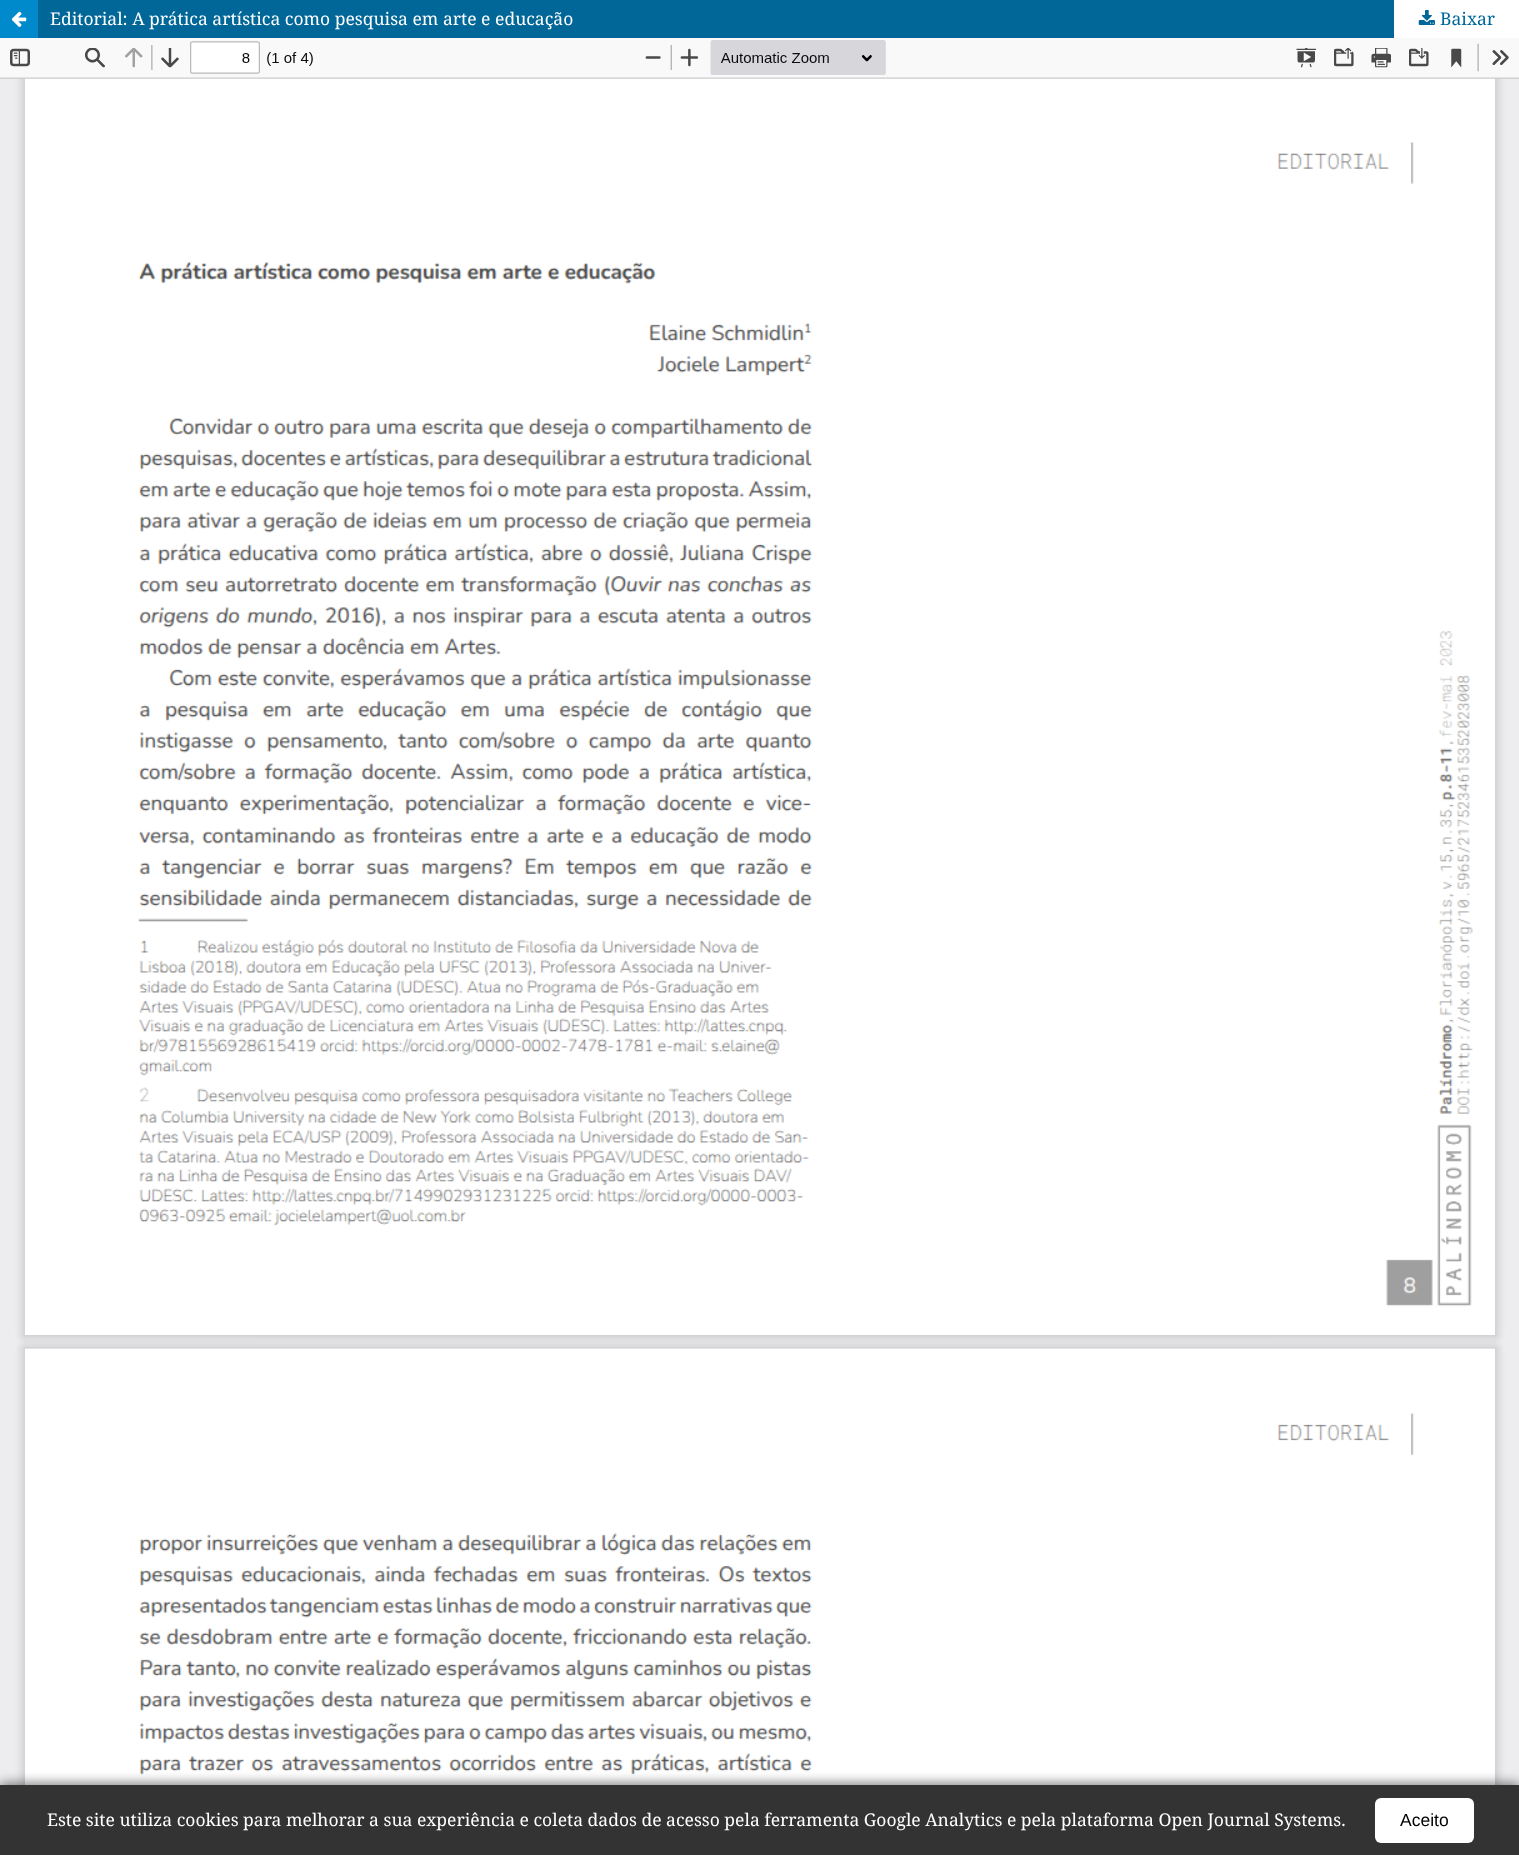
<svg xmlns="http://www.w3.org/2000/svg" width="1519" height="1855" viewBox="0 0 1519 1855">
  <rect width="100%" height="100%" fill="#fff"/>
  <path d="M38 0h1356v38H38z" fill="#006798"/>
  <path d="M0 0h38v38H0z" fill="#008acb"/>
  <image x="11" y="11" width="16" height="16" href="img/1.png"/>
  <image x="1418" y="10" width="17" height="15" href="img/2.png"/>
  <image x="0" y="38" width="1519" height="1747" href="img/3.png"/>
  <path d="M0 1783h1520v70H0z" fill="#00000080" filter="blur(6px)"/>
  <path d="M0 1785h1519v70H0z" fill="#333"/>
  <rect x="1375" y="1798" width="99" height="45" rx="6" fill="#fff"/>
  <text x="50" y="25" font-family="Noto Serif" font-size="17.5" fill="#fff">Editorial: A prática artística como pesquisa em arte e educação</text>
  <text x="1440" y="25" font-family="Noto Serif" font-size="17.5" fill="#006798">Baixar</text>
  <text x="47" y="1826" font-family="Noto Serif" font-size="17.5" fill="#fff">Este site utiliza cookies para melhorar a sua experiência e coleta dados de acesso pela ferramenta Google Analytics e pela plataforma Open Journal Systems.</text>
  <text x="1400" y="1826" font-family="Liberation Sans" font-size="17.5" fill="#000">Aceito</text>
</svg>
